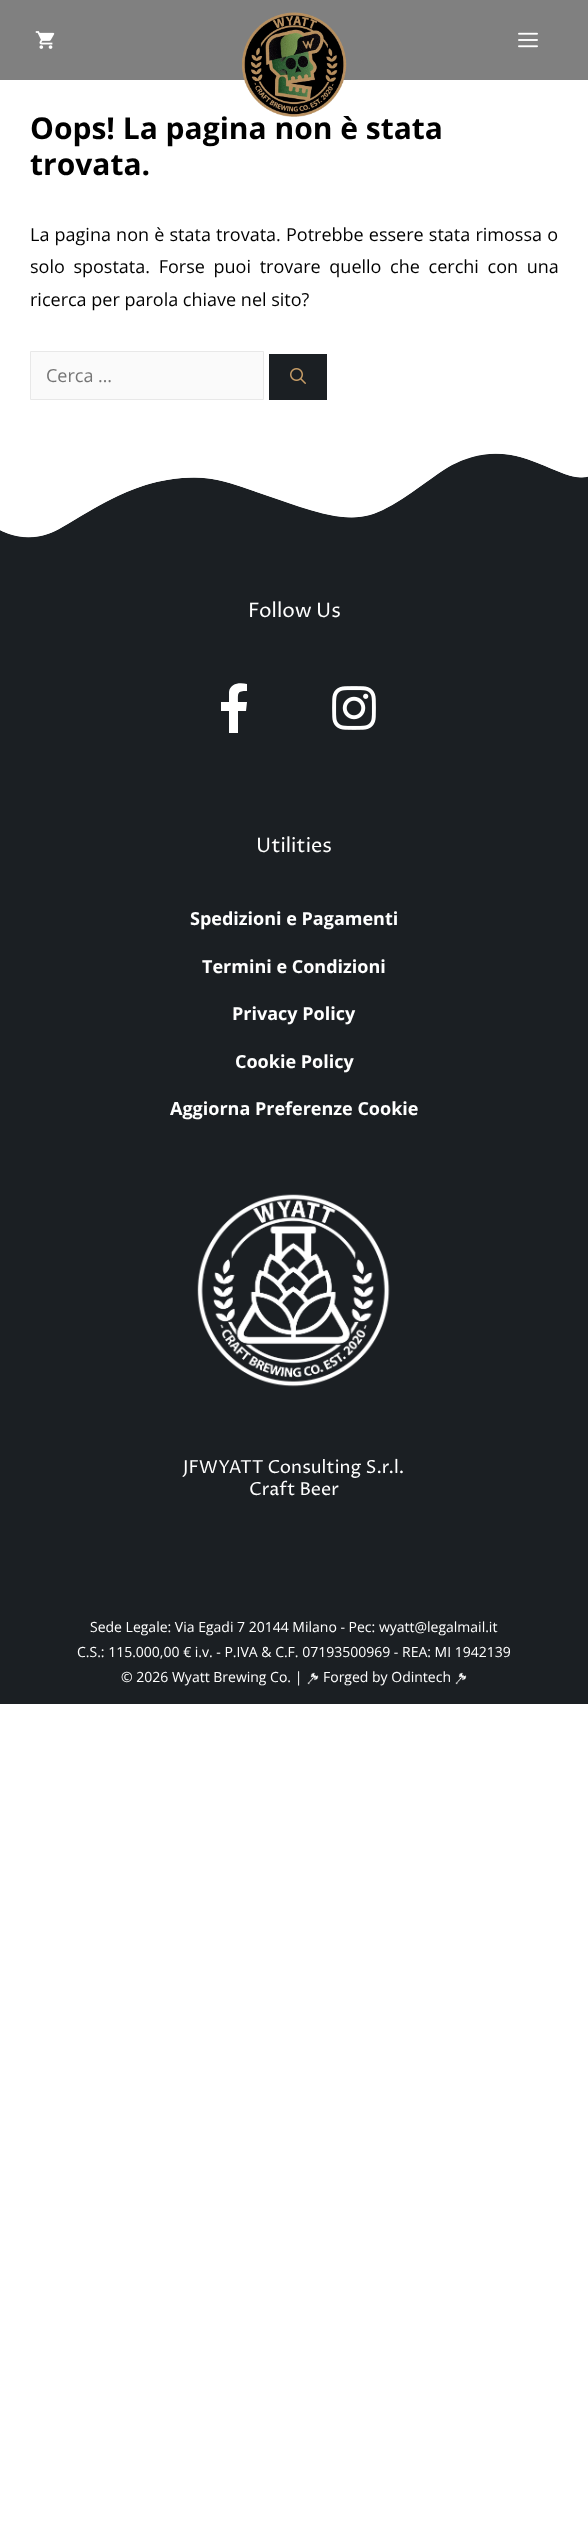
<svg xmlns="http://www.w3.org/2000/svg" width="588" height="2546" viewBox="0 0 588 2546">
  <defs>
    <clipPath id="clip1"><path d="M0 429h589v135H0z"/></clipPath>
  </defs>
  <rect width="100%" height="100%" fill="#fff"/>
  <path d="M0 0h588v80H0z" fill="#808080"/>
  <image x="35" y="31" width="20" height="18" href="img/2.png"/>
  <image x="518" y="32" width="20" height="16" href="img/3.png"/>
  <path d="M30.5 351.5h233v48H30.5z" fill="#fafafa" stroke="#e8e8e8"/>
  <path d="M269 354h58v46H269z" fill="#1b1f23"/>
  <image x="290" y="368" width="16" height="16" href="img/4.png"/>
  <path d="M0 453h588v1211H0z" fill="#1b1f23"/>
  <image x="0" y="453" width="588" height="85" href="img/5.png"/>
  <g clip-path="url(#clip1)">
    <path d="M527 459C494 448 470 456 452 465C434 474 398 507 370 515C342 523 309 510 268 496C227 482 210 473 167 480C123 487 84 515 59 529C24 548-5 527-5 527V422H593V475C573 482 561 471 527 459Z" fill="#fff"/>
  </g>
  <path d="M246 711L247 702H238C238 693 237 691 247 691V684C240 682 230 683 229 692V702H221V711H229V733H238V711Z" fill="#fff"/>
  <image x="332" y="686" width="44" height="44" href="img/6.png"/>
  <image x="197" y="1194" width="193" height="193" href="img/7.png"/>
  <path d="M0 1664h588v40H0z" fill="#1b1f23"/>
  <image x="307" y="1672" width="12" height="13" href="img/8.png"/>
  <image x="455" y="1672" width="12" height="13" href="img/9.png"/>
  <text x="30" y="139" font-family="Open Sans" font-size="30" font-weight="bold" fill="#000">Oops! La pagina non è stata</text>
  <image x="242" y="12" width="105" height="105" href="img/1.png"/>
  <text x="30" y="175" font-family="Open Sans" font-size="30" font-weight="bold" fill="#000">trovata.</text>
  <g font-family="Open Sans" font-size="18" fill="#000">
    <text x="30" y="241" word-spacing="0.5">La pagina non è stata trovata. Potrebbe essere stata rimossa o</text>
    <text x="30" y="273" word-spacing="4">solo spostata. Forse puoi trovare quello che cerchi con una</text>
    <text x="30" y="306">ricerca per parola chiave nel sito?</text>
  </g>
  <text x="46" y="382" font-family="Open Sans" font-size="18" fill="#757575">Cerca …</text>
  <g font-family="Proza Libre" font-size="20" fill="#fff">
    <text x="248" y="617">Follow Us</text>
    <text x="256" y="852">Utilities</text>
  </g>
  <g font-family="Open Sans" font-size="18" font-weight="bold" fill="#fff">
    <text x="190" y="925">Spedizioni e Pagamenti</text>
    <text x="202" y="973">Termini e Condizioni</text>
    <text x="232" y="1020">Privacy Policy</text>
    <text x="235" y="1068">Cookie Policy</text>
    <text x="170" y="1115">Aggiorna Preferenze Cookie</text>
  </g>
  <g font-family="Proza Libre" font-size="18" fill="#fff">
    <text x="183" y="1473">JFWYATT Consulting S.r.l.</text>
    <text x="249" y="1495">Craft Beer</text>
  </g>
  <g font-family="Open Sans" font-size="14" fill="#fff">
    <text x="90" y="1632">Sede Legale: Via Egadi 7 20144 Milano - Pec: wyatt@legalmail.it</text>
    <text x="77" y="1657">C.S.: 115.000,00 € i.v. - P.IVA &amp; C.F. 07193500969 - REA: MI 1942139</text>
    <text x="121" y="1682">© 2026 Wyatt Brewing Co. |</text>
    <text x="323" y="1682">Forged by Odintech</text>
  </g>
</svg>
